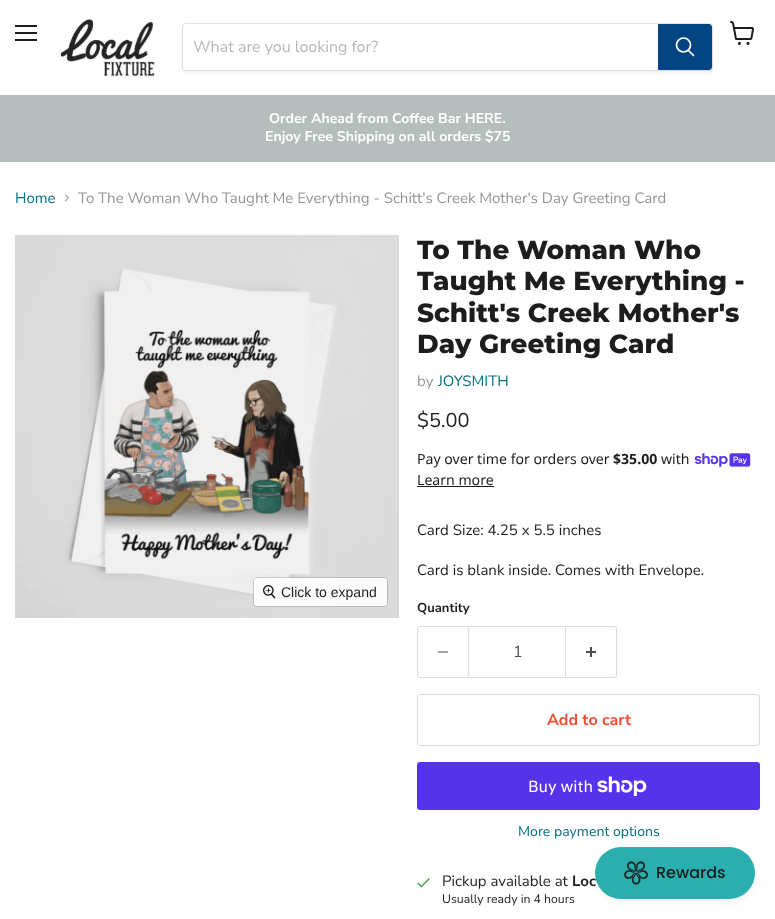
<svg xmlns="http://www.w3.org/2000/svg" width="775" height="919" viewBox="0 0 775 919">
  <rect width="100%" height="100%" fill="#fff"/>
  <path d="M15 25h22v2H15z" fill="#1d1d1d"/>
  <path d="M15 32h22v2H15z" fill="#1d1d1d"/>
  <path d="M15 39h22v2H15z" fill="#1d1d1d"/>
  <image x="730" y="21" width="24" height="24" href="img/1.png"/>
  <image x="60" y="19" width="95" height="58" href="img/2.png"/>
  <rect x="182" y="25" width="531" height="48" rx="4" fill="#8080801c" filter="blur(1.5px)"/>
  <rect x="182.5" y="23.5" width="530" height="47" rx="3.5" fill="none" stroke="#80808033"/>
  <path d="M186 24H658V70H186C184.5 70 183 68.5 183 67V27C183 25.5 184.5 24 186 24Z" fill="#fff"/>
  <path d="M658.5 24.5H709C710.5 24.5 711.5 25.5 711.5 27V67C711.5 68.5 710.5 69.5 709 69.5H658.5Z" fill="#044482" stroke="#044482"/>
  <path d="M693.5 55.5L688.5 50.5" fill="none" stroke="#fff" stroke-width="1.7" stroke-linecap="round"/>
  <circle cx="683.5" cy="45" r="7" fill="none" stroke="#fff" stroke-width="1.7"/>
  <path d="M0 95h775v67H0z" fill="#b5bdbd"/>
  <image x="64" y="194" width="5" height="8" href="img/3.png"/>
  <image x="15" y="235" width="384" height="383" href="img/4.png"/>
  <rect x="253.5" y="577.5" width="134" height="29" rx="3.5" fill="none" stroke="#00000026"/>
  <rect x="254" y="578" width="133" height="28" rx="3" fill="#ffffffe6"/>
  <image x="263" y="585" width="13" height="14" href="img/5.png"/>
  <image x="694" y="453" width="57" height="14" href="img/6.png"/>
  <path d="M417 486h77v1H417z" fill="#1d1d1d"/>
  <path d="M420 626H468V678H420C418 678 417 677 417 675V629C417 627 418 626 420 626ZM420 627H468V677H420C419 677 418 676 418 675V629C418 628 419 627 420 627Z" fill="#ddd" fill-rule="evenodd"/>
  <path d="M438 651h10v2H438z" fill="#a6a6a6"/>
  <path d="M468.5 626.5h97v51H468.5z" fill="none" stroke="#ddd"/>
  <path d="M566 626H614C616 626 617 627 617 629V675C617 677 616 678 614 678H566ZM566 627H614C615 627 616 628 616 629V675C616 676 615 677 614 677H566Z" fill="#ddd" fill-rule="evenodd"/>
  <image x="586" y="647" width="10" height="10" href="img/7.png"/>
  <rect x="417.5" y="694.5" width="342" height="51" rx="2.5" fill="none" stroke="#ddd"/>
  <rect x="417" y="762" width="343" height="48" rx="3" fill="#5433eb"/>
  <image x="597" y="776" width="50" height="20" href="img/8.png"/>
  <image x="417" y="878" width="13" height="10" href="img/9.png"/>
  <rect x="597" y="853" width="156" height="48" rx="24" fill="#44444414" filter="blur(4px)"/>
  <text x="193" y="52" font-family="Nunito Sans" font-size="16" fill="#b8b8b8">What are you looking for?</text>
  <g font-family="Nunito Sans" font-size="14.1" font-weight="bold" fill="#fff">
    <text x="269" y="123">Order Ahead from Coffee Bar HERE.</text>
    <text x="265" y="141">Enjoy Free Shipping on all orders $75</text>
  </g>
  <text x="15" y="203" font-family="Nunito Sans" font-size="15" fill="#046e82">Home</text>
  <text x="78" y="203" font-family="Nunito Sans" font-size="15" fill="#949494">To The Woman Who Taught Me Everything - Schitt's Creek Mother's Day Greeting Card</text>
  <text x="281" y="597" font-family="Liberation Sans" font-size="14" fill="#1d1d1d">Click to expand</text>
  <g font-family="Montserrat" font-size="26.25" font-weight="800" fill="#1d1d1d">
    <text x="417" y="259">To The Woman Who</text>
    <text x="417" y="290">Taught Me Everything -</text>
    <text x="417" y="322">Schitt's Creek Mother's</text>
    <text x="417" y="353">Day Greeting Card</text>
  </g>
  <text x="417" y="386" font-family="Nunito Sans" font-size="15" fill="#949494">by</text>
  <text x="438" y="386" font-family="Nunito Sans" font-size="15" fill="#046e82">JOYSMITH</text>
  <text x="417" y="427" font-family="Nunito Sans" font-size="20" fill="#1d1d1d">$5.00</text>
  <text x="417" y="464" font-family="Noto Sans" font-size="14.1" fill="#1d1d1d">Pay over time for orders over</text>
  <text x="613" y="464" font-family="Noto Sans" font-size="14.1" font-weight="bold" fill="#1d1d1d">$35.00</text>
  <g font-family="Noto Sans" font-size="14.1" fill="#1d1d1d">
    <text x="661" y="464">with</text>
    <text x="417" y="485">Learn more</text>
  </g>
  <g font-family="Nunito Sans" font-size="15" fill="#1d1d1d">
    <text x="417" y="535">Card Size: 4.25 x 5.5 inches</text>
    <text x="417" y="575">Card is blank inside. Comes with Envelope.</text>
  </g>
  <text x="417" y="612" font-family="Nunito Sans" font-size="13" font-weight="bold" fill="#1d1d1d">Quantity</text>
  <text x="513" y="657" font-family="Nunito Sans" font-size="16" fill="#4d4d4d">1</text>
  <text x="547" y="725" font-family="Nunito Sans" font-size="16" font-weight="bold" fill="#f04f36">Add to cart</text>
  <text x="528" y="792" font-family="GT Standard" font-size="16" fill="#fff">Buy with</text>
  <text x="518" y="836" font-family="Nunito Sans" font-size="14.1" fill="#046e82">More payment options</text>
  <text x="442" y="886" font-family="Nunito Sans" font-size="15" fill="#1d1d1d">Pickup available at</text>
  <text x="572" y="886" font-family="Nunito Sans" font-size="15" font-weight="bold" fill="#1d1d1d">Loc</text>
  <text x="442" y="903" font-family="Nunito Sans" font-size="12.25" fill="#1d1d1d">Usually ready in 4 hours</text>
  <rect x="595" y="847" width="160" height="52" rx="26" fill="#2baeae"/>
  <image x="624" y="861" width="24" height="24" href="img/10.png"/>
  <text x="656" y="878" font-family="Poppins" font-size="16" font-weight="500" fill="#1d1d1d">Rewards</text>
</svg>
